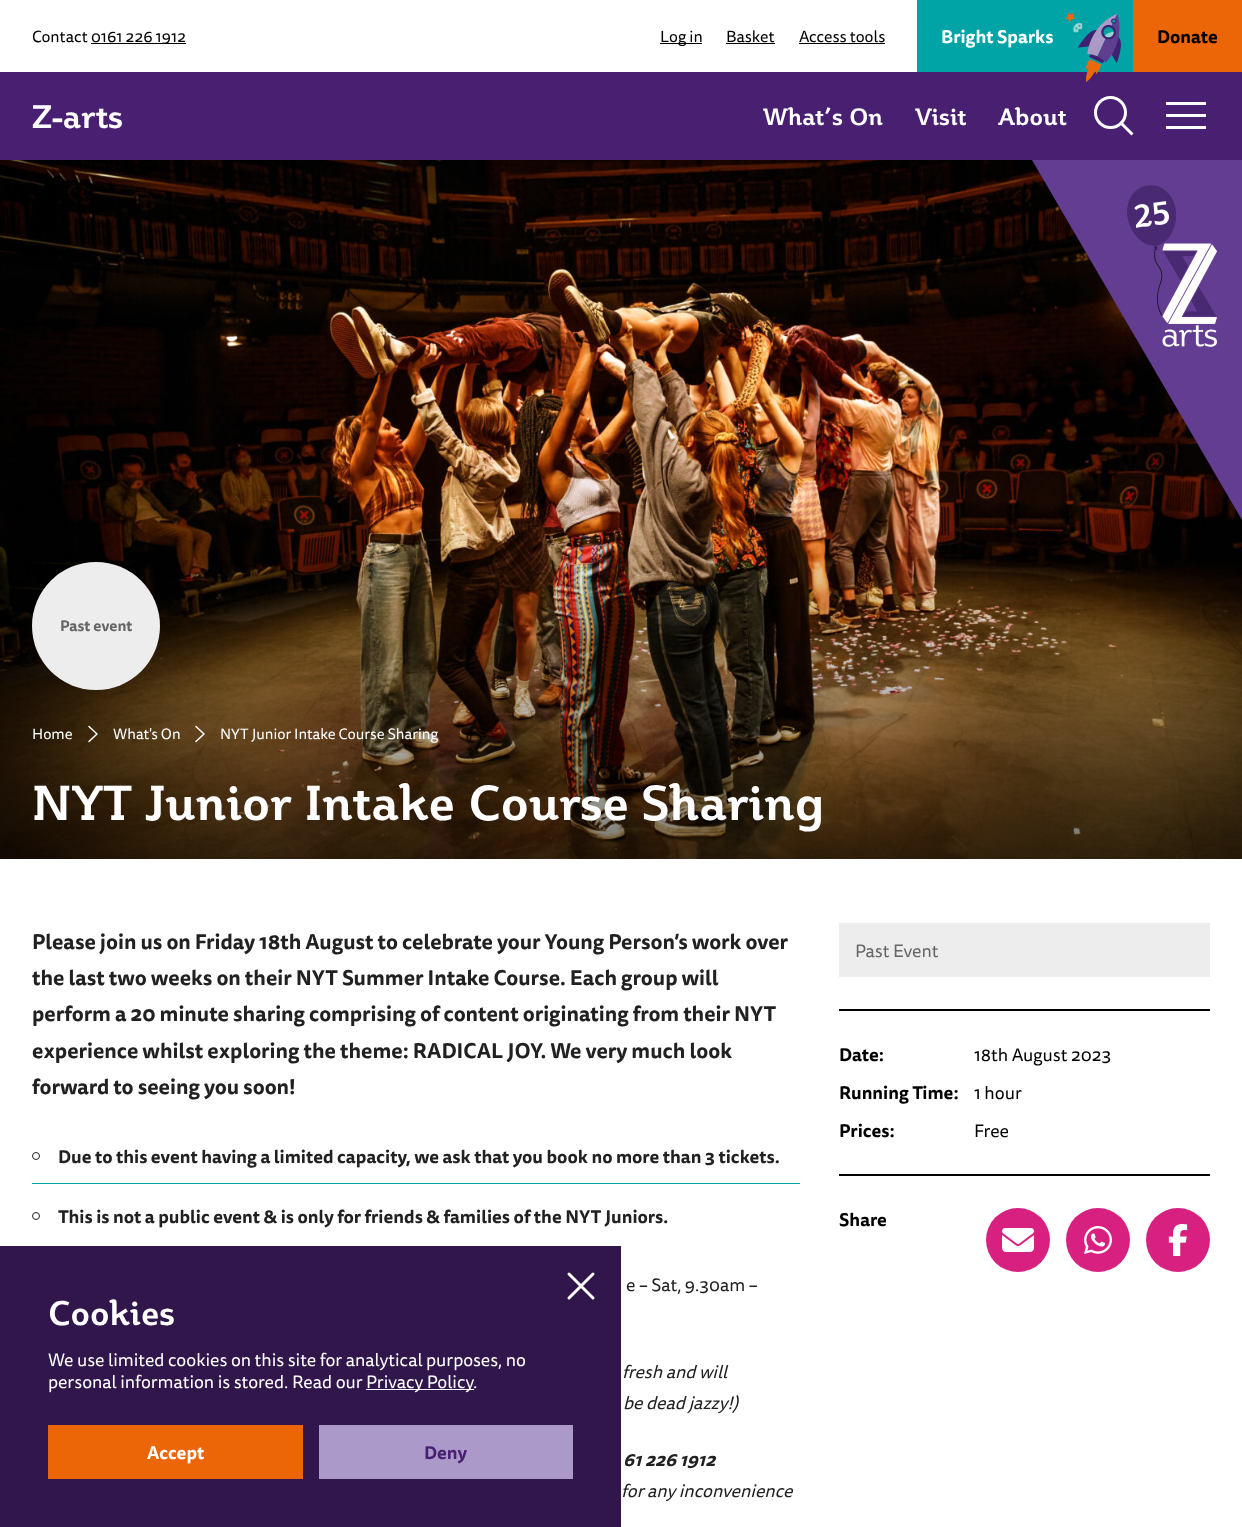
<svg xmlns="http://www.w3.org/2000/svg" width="1242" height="1527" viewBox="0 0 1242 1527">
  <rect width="100%" height="100%" fill="#fff"/>
  <path d="M91 43h95v1H91z" fill="#000"/>
  <path d="M660 43h42v1H660z" fill="#000"/>
  <path d="M726 43h49v1H726z" fill="#000"/>
  <path d="M799 43h86v1H799z" fill="#000"/>
  <path d="M917 0h216v72H917z" fill="#00a3a6"/>
  <path d="M0 72h1242v88H0z" fill="#481f71"/>
  <image x="1065" y="13" width="56" height="69" href="img/1.png"/>
  <path d="M1133 0h109v72H1133z" fill="#ec6608"/>
  <circle cx="1110.5" cy="112.5" r="15" fill="none" stroke="#fff" stroke-width="3"/>
  <path d="M1121 123L1132.5 134.5" fill="none" stroke="#fff" stroke-width="3"/>
  <path d="M1166 102h40v3H1166z" fill="#fff"/>
  <path d="M1166 126h40v3H1166z" fill="#fff"/>
  <path d="M1166 114h40v3H1166z" fill="#fff"/>
  <image x="0" y="160" width="1242" height="699" href="img/3.png"/>
  <path d="M1242 160V520L1032 160Z" fill="#623d91"/>
  <image x="1127" y="185" width="90" height="162" href="img/2.png"/>
  <circle cx="96" cy="626" r="64" fill="#ededed"/>
  <path d="M89 726.5L97 734L89 741.5" fill="none" stroke="#fff" stroke-width="1.5" stroke-linecap="round" stroke-linejoin="round"/>
  <path d="M196 726.5L204 734L196 741.5" fill="none" stroke="#fff" stroke-width="1.5" stroke-linecap="round" stroke-linejoin="round"/>
  <path d="M32 1183h768v1H32z" fill="#00a3a6"/>
  <circle cx="36" cy="1156" r="3.5" fill="none" stroke="#212121"/>
  <circle cx="36" cy="1216" r="3.5" fill="none" stroke="#212121"/>
  <path d="M839 923h371v54H839z" fill="#ededed"/>
  <path d="M839 1009h371v2H839z" fill="#000"/>
  <path d="M839 1174h371v2H839z" fill="#000"/>
  <circle cx="1018" cy="1240" r="32" fill="#d82080"/>
  <image x="1002" y="1228" width="32" height="24" href="img/4.png"/>
  <circle cx="1098" cy="1240" r="32" fill="#d82080"/>
  <image x="1084" y="1226" width="28" height="28" href="img/5.png"/>
  <circle cx="1178" cy="1240" r="32" fill="#d82080"/>
  <image x="1168" y="1224" width="20" height="32" href="img/6.png"/>
  <path d="M0 1246h621v281H0z" fill="#31164b"/>
  <path d="M569 1298L593 1274M569 1274L593 1298" fill="none" stroke="#fff" stroke-width="3" stroke-linecap="round" stroke-linejoin="round"/>
  <path d="M366 1389h108v1H366z" fill="#fff"/>
  <path d="M48 1425h255v54H48z" fill="#ec6608"/>
  <path d="M319 1425h254v54H319z" fill="#ab99c9"/>
  <g font-family="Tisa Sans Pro" font-size="16" fill="#000">
    <text x="32" y="42">Contact</text>
    <text x="91" y="42">0161 226 1912</text>
    <text x="660" y="42">Log in</text>
    <text x="726" y="42">Basket</text>
    <text x="799" y="42">Access tools</text>
  </g>
  <text x="941" y="43" font-family="Tisa Sans Pro" font-size="17.85" font-weight="bold" fill="#fff">Bright Sparks</text>
  <text x="1157" y="43" font-family="Tisa Sans Pro" font-size="17.85" font-weight="bold" fill="#000">Donate</text>
  <text x="32" y="128" font-family="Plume" font-size="32" font-weight="bold" fill="#fff">Z-arts</text>
  <g font-family="Plume" font-size="23.25" font-weight="bold" fill="#fff">
    <text x="763" y="125">What’s On</text>
    <text x="915" y="125">Visit</text>
    <text x="998" y="125">About</text>
  </g>
  <text x="60" y="631" font-family="Tisa Sans Pro" font-size="14.9" font-weight="bold" fill="#666">Past event</text>
  <g font-family="Tisa Sans Pro" font-size="14.9" fill="#fff">
    <text x="32" y="739">Home</text>
    <text x="113" y="739">What's On</text>
    <text x="220" y="739">NYT Junior Intake Course Sharing</text>
  </g>
  <text x="32" y="820" font-family="Plume" font-size="48.25" font-weight="bold" fill="#fff">NYT Junior Intake Course Sharing</text>
  <g font-family="Tisa Sans Pro" font-size="20.75" font-weight="bold" fill="#212121">
    <text x="32" y="949">Please join us on Friday 18th August to celebrate your Young Person’s work over</text>
    <text x="32" y="985">the last two weeks on their NYT Summer Intake Course. Each group will</text>
    <text x="32" y="1021">perform a 20 minute sharing comprising of content originating from their NYT</text>
    <text x="32" y="1058">experience whilst exploring the theme: RADICAL JOY. We very much look</text>
    <text x="32" y="1094">forward to seeing you soon!</text>
  </g>
  <g font-family="Tisa Sans Pro" font-size="17.85" font-weight="bold" fill="#212121">
    <text x="58" y="1163">Due to this event having a limited capacity, we ask that you book no more than 3 tickets.</text>
    <text x="58" y="1223">This is not a public event &amp; is only for friends &amp; families of the NYT Juniors.</text>
  </g>
  <text x="626" y="1291" font-family="Tisa Sans Pro" font-size="17.85" fill="#212121">e – Sat, 9.30am –</text>
  <g font-family="Tisa Sans Pro" font-size="17.85" font-style="italic" fill="#212121">
    <text x="622" y="1378">fresh and will</text>
    <text x="623" y="1409">be dead jazzy!)</text>
  </g>
  <text x="623" y="1466" font-family="Tisa Sans Pro" font-size="17.85" font-weight="bold" font-style="italic" fill="#212121">61 226 1912</text>
  <text x="621" y="1497" font-family="Tisa Sans Pro" font-size="17.85" font-style="italic" fill="#212121">for any inconvenience</text>
  <text x="855" y="957" font-family="Tisa Sans Pro" font-size="17.85" fill="#666">Past Event</text>
  <text x="839" y="1061" font-family="Tisa Sans Pro" font-size="17.85" font-weight="bold" fill="#000">Date:</text>
  <text x="974" y="1061" font-family="Tisa Sans Pro" font-size="17.85" fill="#000">18th August 2023</text>
  <text x="839" y="1099" font-family="Tisa Sans Pro" font-size="17.85" font-weight="bold" fill="#000">Running Time:</text>
  <text x="974" y="1099" font-family="Tisa Sans Pro" font-size="17.85" fill="#000">1 hour</text>
  <text x="839" y="1137" font-family="Tisa Sans Pro" font-size="17.85" font-weight="bold" fill="#000">Prices:</text>
  <text x="974" y="1137" font-family="Tisa Sans Pro" font-size="17.85" fill="#000">Free</text>
  <text x="839" y="1226" font-family="Tisa Sans Pro" font-size="17.85" font-weight="bold" fill="#000">Share</text>
  <text x="48" y="1325" font-family="Plume" font-size="33.5" font-weight="bold" fill="#fff">Cookies</text>
  <g font-family="Tisa Sans Pro" font-size="17.85" fill="#fff">
    <text x="48" y="1366">We use limited cookies on this site for analytical purposes, no</text>
    <text x="48" y="1388">personal information is stored. Read our</text>
    <text x="366" y="1388">Privacy Policy.</text>
  </g>
  <text x="147" y="1459" font-family="Tisa Sans Pro" font-size="17.85" font-weight="bold" fill="#fff">Accept</text>
  <text x="424" y="1459" font-family="Tisa Sans Pro" font-size="17.85" font-weight="bold" fill="#481f71">Deny</text>
</svg>
